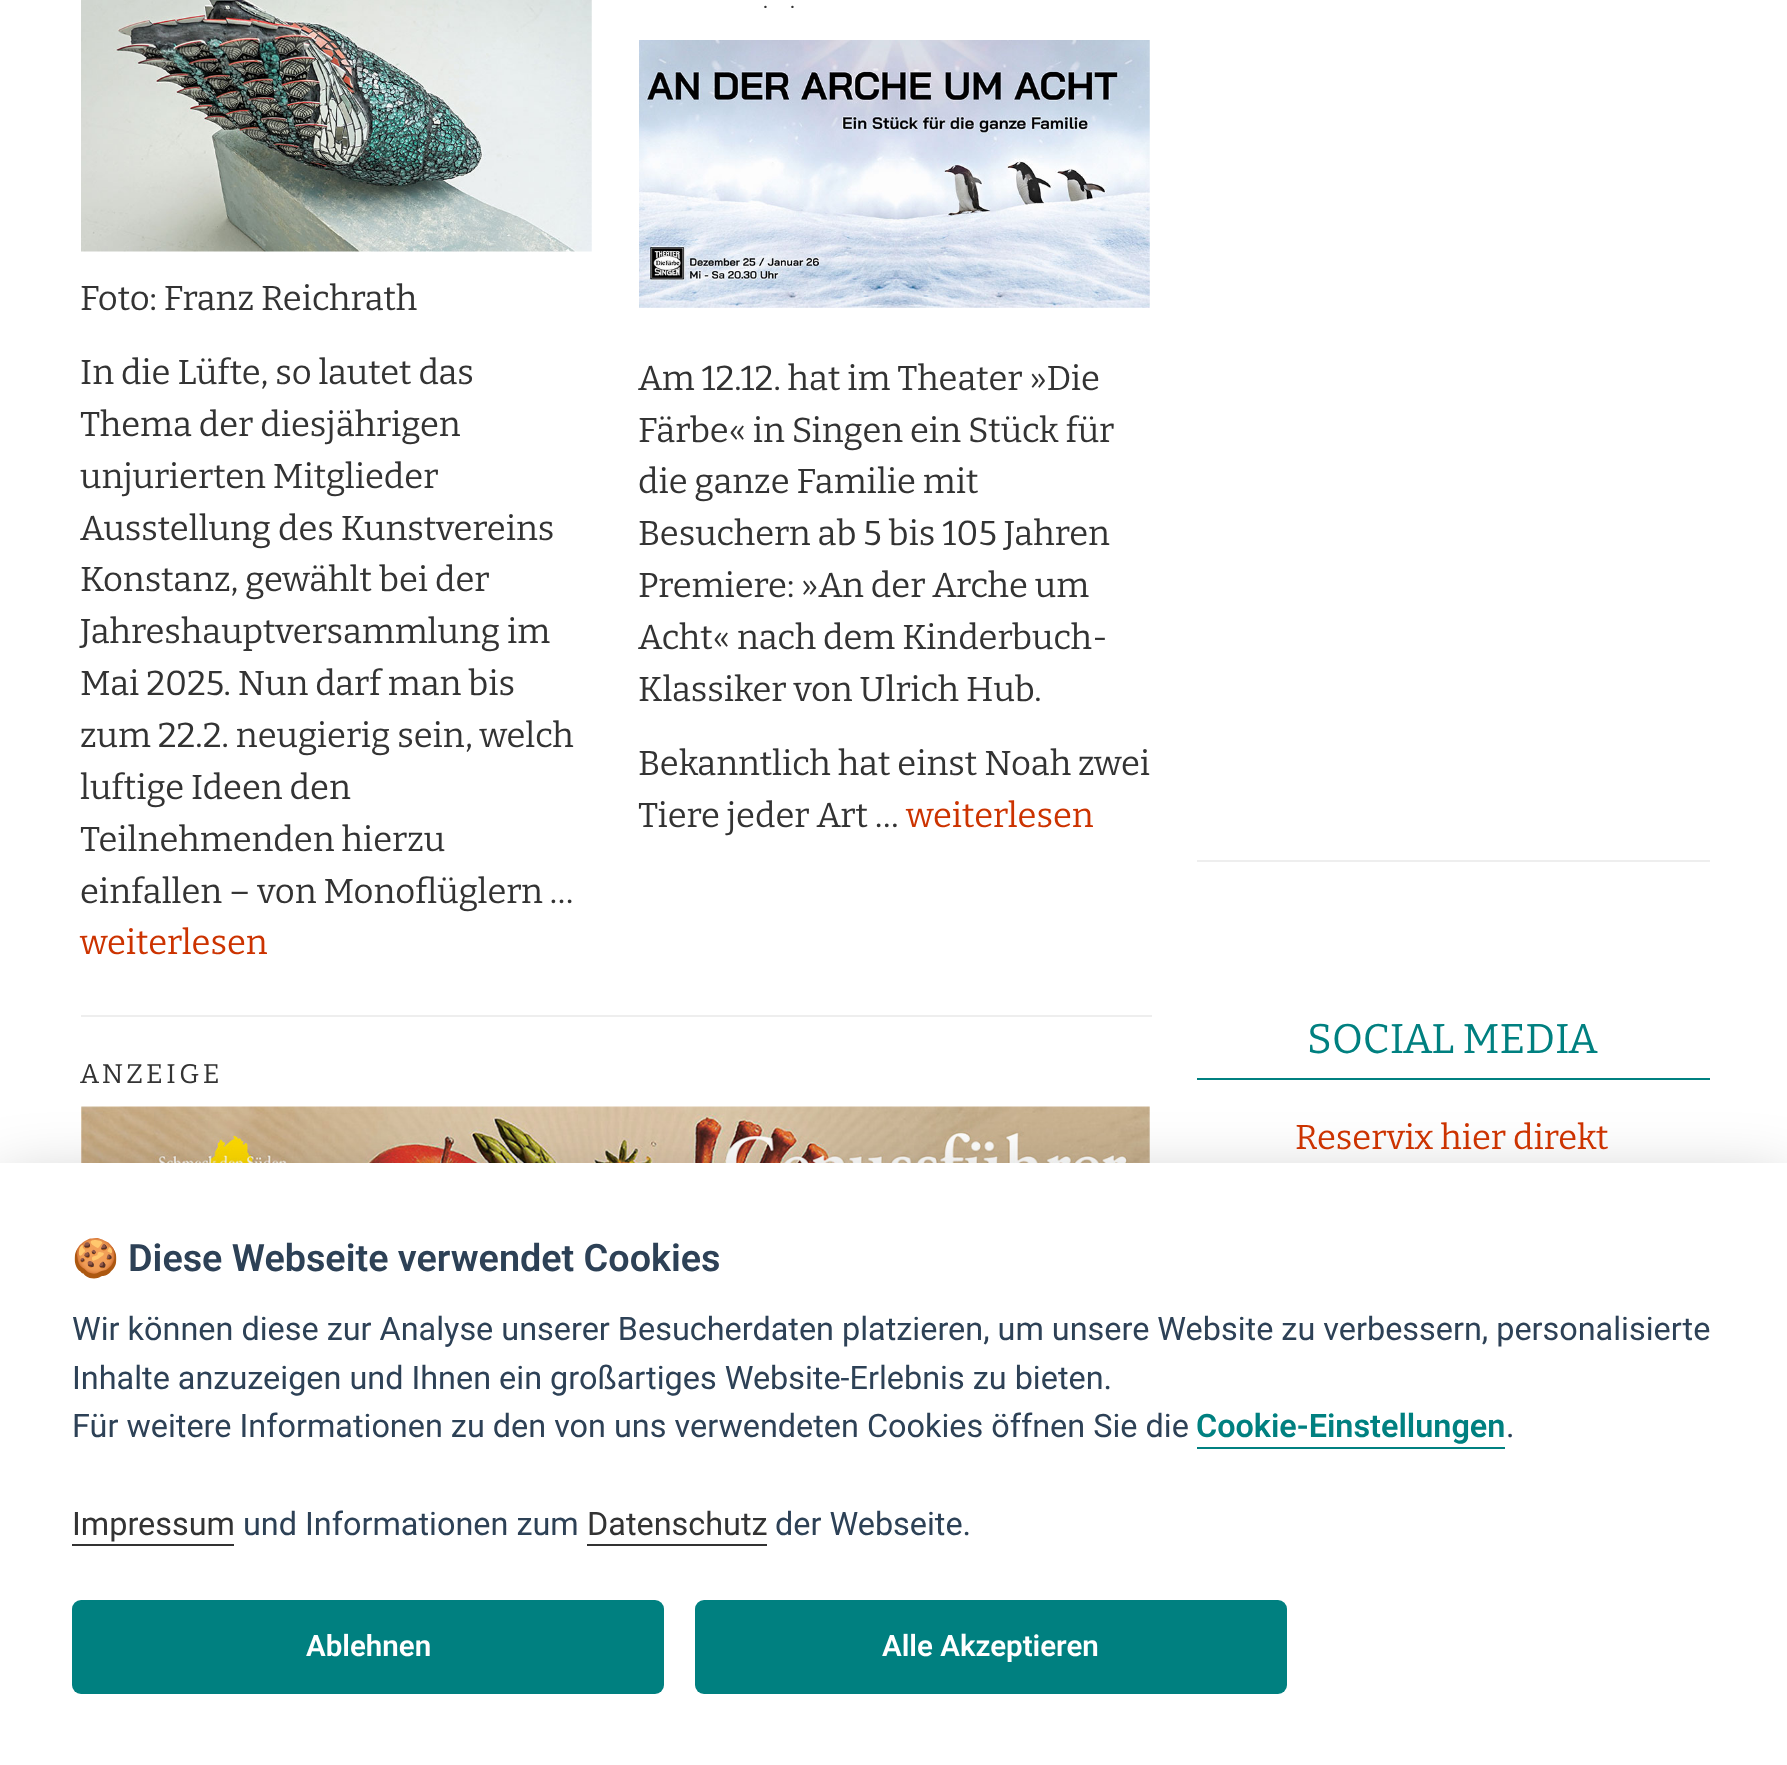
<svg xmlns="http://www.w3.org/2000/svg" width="1787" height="1765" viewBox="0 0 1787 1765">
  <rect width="100%" height="100%" fill="#fff"/>
  <image x="81" y="0" width="511" height="252" href="img/1.png"/>
  <image x="639" y="40" width="511" height="268" href="img/2.png"/>
  <path d="M1197 860h513v2H1197z" fill="#eee"/>
  <path d="M81 1015h1071v2H81z" fill="#eee"/>
  <image x="81" y="1106" width="1069" height="57" href="img/3.png"/>
  <path d="M1197 1078h513v2H1197z" fill="#008080"/>
  <path d="M0 1186h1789v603H0z" fill="#02020347" filter="blur(34px)"/>
  <path d="M0 1163h1787v602H0z" fill="#fff"/>
  <path d="M1197 1447h308v2H1197z" fill="#008080"/>
  <path d="M72 1544h162v2H72z" fill="#333"/>
  <path d="M587 1544h180v2H587z" fill="#333"/>
  <rect x="72" y="1600" width="592" height="94" rx="9" fill="#008080"/>
  <rect x="695" y="1600" width="592" height="94" rx="9" fill="#008080"/>
  <g font-family="Bitter" font-size="34.5" fill="#333">
    <text x="80" y="310">Foto: Franz Reichrath</text>
    <text x="80" y="384">In die Lüfte, so lautet das</text>
    <text x="80" y="436">Thema der diesjährigen</text>
    <text x="80" y="488">unjurierten Mitglieder</text>
    <text x="80" y="540">Ausstellung des Kunstvereins</text>
    <text x="80" y="591">Konstanz, gewählt bei der</text>
    <text x="80" y="643">Jahreshauptversammlung im</text>
    <text x="80" y="695">Mai 2025. Nun darf man bis</text>
    <text x="80" y="747">zum 22.2. neugierig sein, welch</text>
    <text x="80" y="799">luftige Ideen den</text>
    <text x="80" y="851">Teilnehmenden hierzu</text>
    <text x="80" y="903">einfallen – von Monoflüglern …</text>
  </g>
  <text x="80" y="954" font-family="Bitter" font-size="34.5" fill="#c30">weiterlesen</text>
  <g font-family="Bitter" font-size="23" fill="#333">
    <text x="763" y="8">.</text>
    <text x="790" y="8">.</text>
  </g>
  <g font-family="Bitter" font-size="34.5" fill="#333">
    <text x="638" y="390">Am 12.12. hat im Theater »Die</text>
    <text x="638" y="442">Färbe« in Singen ein Stück für</text>
    <text x="638" y="493">die ganze Familie mit</text>
    <text x="638" y="545">Besuchern ab 5 bis 105 Jahren</text>
    <text x="638" y="597">Premiere: »An der Arche um</text>
    <text x="638" y="649">Acht« nach dem Kinderbuch-</text>
    <text x="638" y="701">Klassiker von Ulrich Hub.</text>
    <text x="638" y="775">Bekanntlich hat einst Noah zwei</text>
    <text x="638" y="827">Tiere jeder Art …</text>
  </g>
  <text x="906" y="827" font-family="Bitter" font-size="34.5" fill="#c30">weiterlesen</text>
  <text x="80" y="1083" font-family="Bitter" font-size="27" letter-spacing="3.5" fill="#333">ANZEIGE</text>
  <text x="1307" y="1053" font-family="Bitter" font-size="41.5" fill="#008080">SOCIAL MEDIA</text>
  <text x="1295" y="1149" font-family="Bitter" font-size="34.5" fill="#c30">Reservix hier direkt</text>
  <text x="72" y="1271" font-family="Noto Color Emoji" font-size="37.75" font-weight="bold" fill="#2d4156">🍪</text>
  <text x="128" y="1271" font-family="Roboto" font-size="37.75" font-weight="600" fill="#2d4156">Diese Webseite verwendet Cookies</text>
  <g font-family="Roboto" font-size="32.4" fill="#2d4156">
    <text x="72" y="1340">Wir können diese zur Analyse unserer Besucherdaten platzieren, um unsere Website zu verbessern, personalisierte</text>
    <text x="72" y="1389">Inhalte anzuzeigen und Ihnen ein großartiges Website-Erlebnis zu bieten.</text>
    <text x="72" y="1437">Für weitere Informationen zu den von uns verwendeten Cookies öffnen Sie die</text>
  </g>
  <text x="1196" y="1437" font-family="Roboto" font-size="32.4" font-weight="600" fill="#008080">Cookie-Einstellungen</text>
  <text x="1506" y="1437" font-family="Roboto" font-size="32.4" fill="#2d4156">.</text>
  <text x="72" y="1535" font-family="Roboto" font-size="32.4" fill="#333">Impressum</text>
  <text x="243" y="1535" font-family="Roboto" font-size="32.4" fill="#2d4156">und Informationen zum</text>
  <text x="587" y="1535" font-family="Roboto" font-size="32.4" fill="#333">Datenschutz</text>
  <text x="775" y="1535" font-family="Roboto" font-size="32.4" fill="#2d4156">der Webseite.</text>
  <g font-family="Roboto" font-size="29.5" font-weight="600" fill="#fff">
    <text x="306" y="1656">Ablehnen</text>
    <text x="882" y="1656">Alle Akzeptieren</text>
  </g>
</svg>
